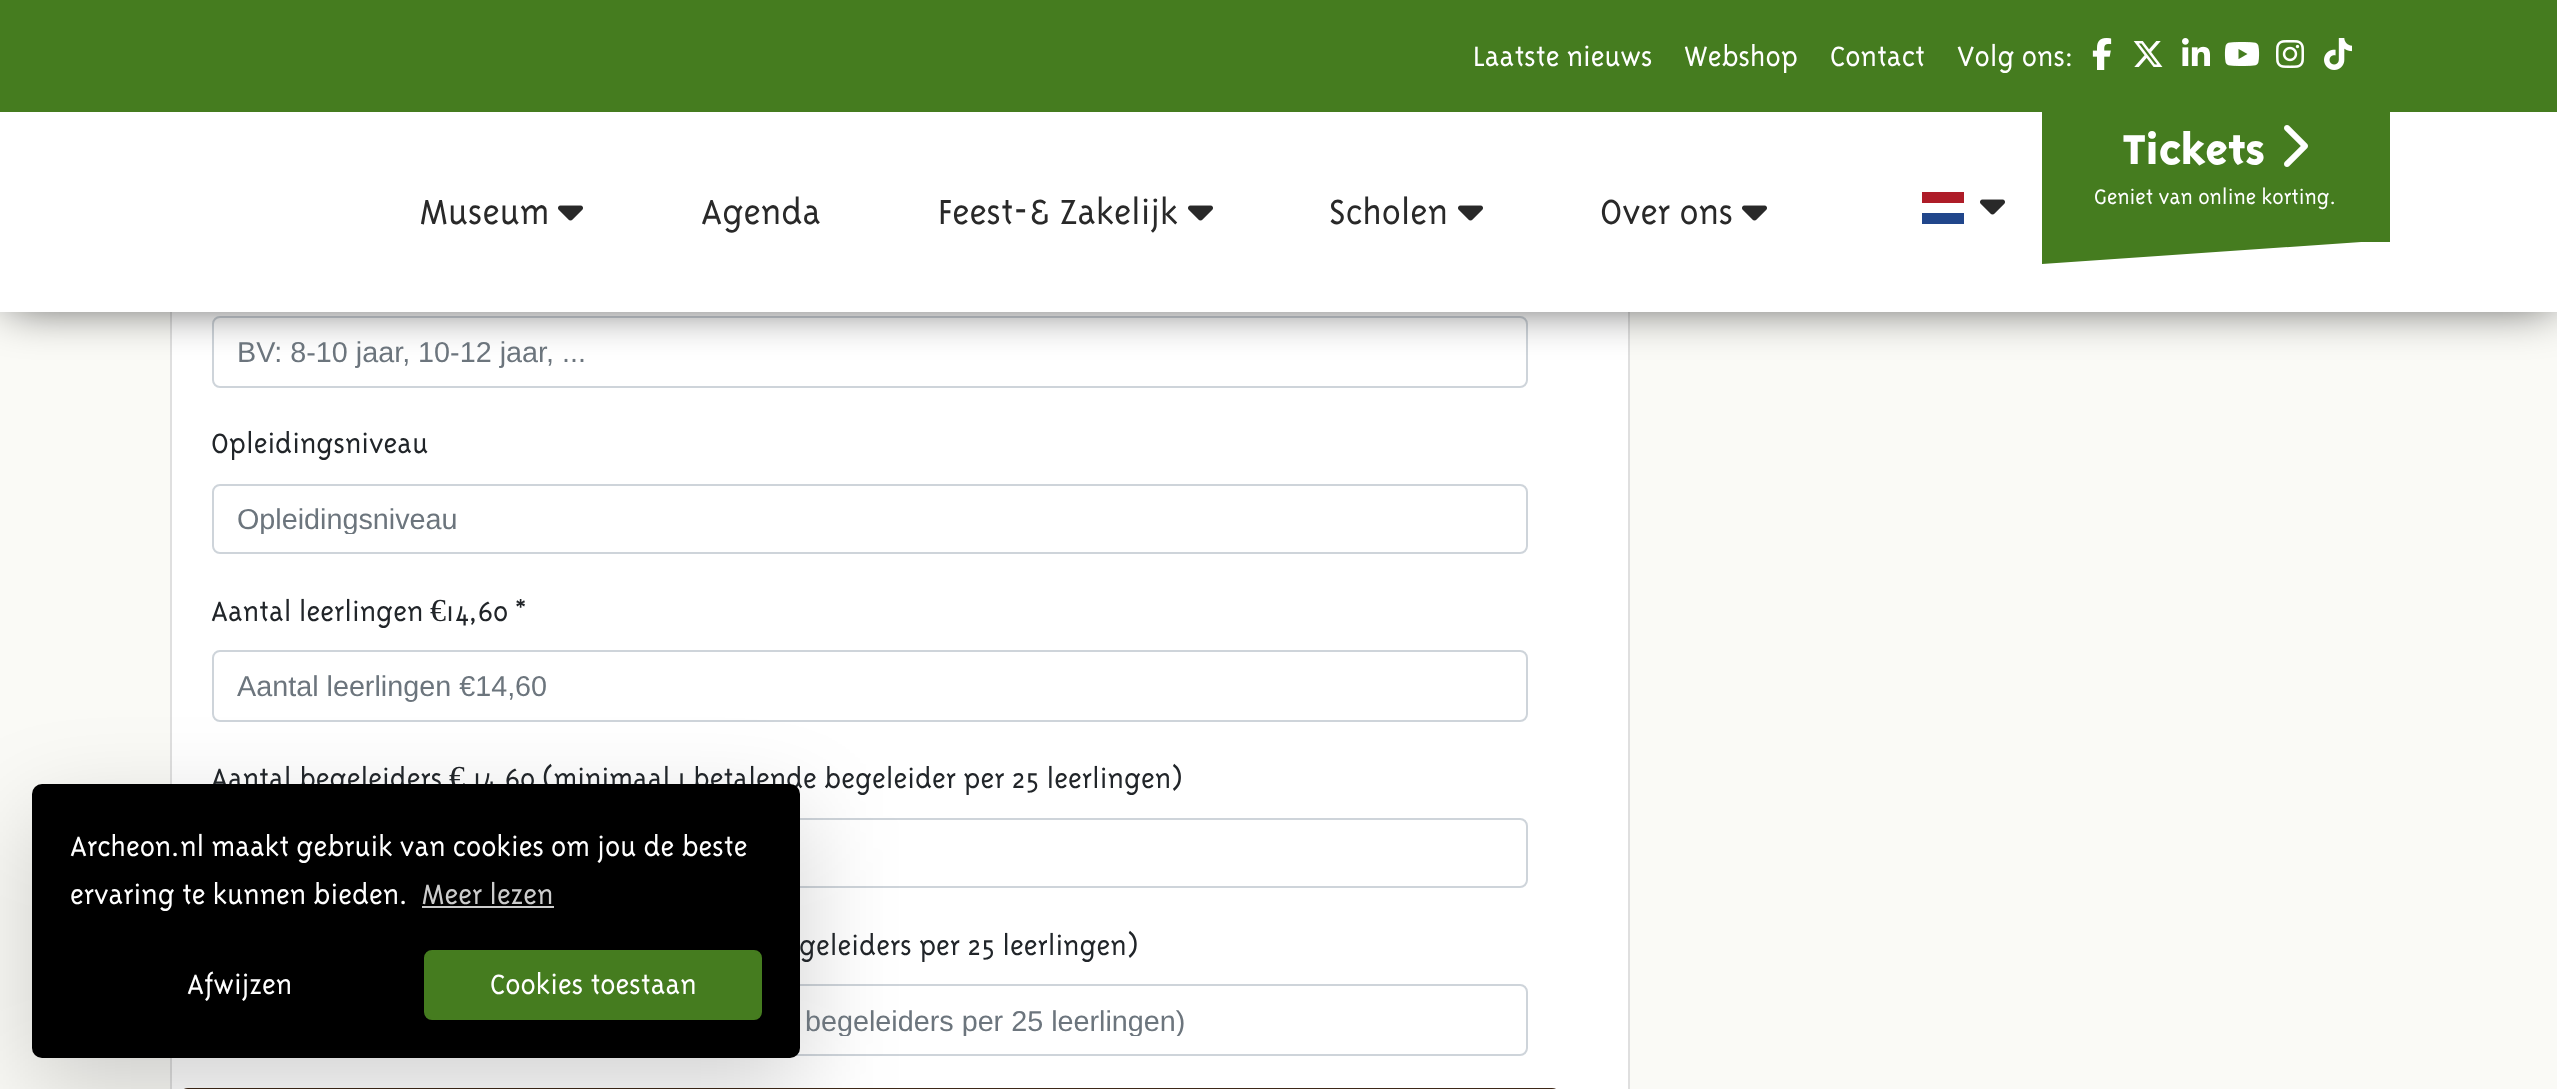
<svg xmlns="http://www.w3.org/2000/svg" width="2557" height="1089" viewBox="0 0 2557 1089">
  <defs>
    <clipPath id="clip1"><path d="M238 502h1264v32H238z"/></clipPath>
    <clipPath id="clip2"><path d="M238 1004h1234v32H238z"/></clipPath>
  </defs>
  <rect width="100%" height="100%" fill="#fafaf6"/>
  <path d="M172 312h1456v777H172z" fill="#fff"/>
  <path d="M171 -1h1458v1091H171z" fill="none" stroke="#dfdfdf" stroke-width="2"/>
  <rect x="213" y="317" width="1314" height="70" rx="7" fill="none" stroke="#ced4da" stroke-width="2"/>
  <path d="M8 4h2546v300H8z" fill="#000000bf" filter="blur(24px)"/>
  <path d="M0 112h2557v200H0z" fill="#fff"/>
  <path d="M0 0h2557v112H0z" fill="#457c1f"/>
  <image x="2092" y="38" width="20" height="32" href="img/1.png"/>
  <image x="2133" y="41" width="30" height="26" href="img/2.png"/>
  <image x="2182" y="38" width="28" height="28" href="img/3.png"/>
  <image x="2224" y="42" width="36" height="24" href="img/4.png"/>
  <image x="2276" y="40" width="28" height="28" href="img/5.png"/>
  <image x="2324" y="38" width="28" height="32" href="img/6.png"/>
  <image x="558" y="205" width="25" height="16" href="img/7.png"/>
  <image x="1188" y="205" width="25" height="16" href="img/7.png"/>
  <image x="1458" y="205" width="25" height="16" href="img/7.png"/>
  <image x="1742" y="205" width="25" height="16" href="img/7.png"/>
  <path d="M1922 213h42v11H1922z" fill="#21468b"/>
  <path d="M1922 192h42v11H1922z" fill="#ae1c28"/>
  <image x="1980" y="199" width="25" height="16" href="img/7.png"/>
  <path d="M2042 112h348v130H2042z" fill="#457c1f"/>
  <image x="2284" y="125" width="24" height="42" href="img/8.png"/>
  <path d="M2042 240H2390L2042 264Z" fill="#457c1f"/>
  <rect x="213" y="485" width="1314" height="68" rx="7" fill="none" stroke="#ced4da" stroke-width="2"/>
  <rect x="213" y="651" width="1314" height="70" rx="7" fill="none" stroke="#ced4da" stroke-width="2"/>
  <rect x="213" y="819" width="1314" height="68" rx="7" fill="none" stroke="#ced4da" stroke-width="2"/>
  <rect x="213" y="985" width="1314" height="70" rx="7" fill="none" stroke="#ced4da" stroke-width="2"/>
  <rect x="182" y="1088" width="1376" height="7" rx="6" fill="#3e2818"/>
  <rect x="32" y="816" width="768" height="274" rx="10" fill="#0000002e" filter="blur(48px)"/>
  <g font-family="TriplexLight" font-size="32" font-weight="300" fill="#fff">
    <text x="1473" y="66">Laatste nieuws</text>
    <text x="1684" y="66">Webshop</text>
    <text x="1830" y="66">Contact</text>
    <text x="1957" y="66">Volg ons:</text>
  </g>
  <g font-family="TriplexLight" font-size="40" font-weight="300" fill="#292929">
    <text x="420" y="224">Museum</text>
    <text x="701" y="224">Agenda</text>
    <text x="938" y="224">Feest-&amp; Zakelijk</text>
    <text x="1329" y="224">Scholen</text>
    <text x="1600" y="224">Over ons</text>
  </g>
  <text x="2123" y="164" font-family="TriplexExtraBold" font-size="48" font-weight="800" fill="#fff">Tickets</text>
  <text x="2094" y="204" font-family="TriplexLight" font-size="24" font-weight="300" fill="#fff">Geniet van online korting.</text>
  <text x="237" y="362" font-family="Liberation Sans" font-size="28.75" fill="#6c757d">BV: 8-10 jaar, 10-12 jaar, ...</text>
  <text x="211" y="453" font-family="TriplexLight" font-size="32" font-weight="300" fill="#212529">Opleidingsniveau</text>
  <g clip-path="url(#clip1)">
    <text x="237" y="529" font-family="Liberation Sans" font-size="28.75" fill="#6c757d">Opleidingsniveau</text>
  </g>
  <text x="211" y="621" font-family="TriplexLight" font-size="32" font-weight="300" fill="#212529">Aantal leerlingen</text>
  <text x="430" y="621" font-family="Liberation Serif" font-size="32" fill="#212529">€</text>
  <text x="446" y="621" font-family="TriplexLight" font-size="32" font-weight="300" fill="#212529">14,60 *</text>
  <text x="237" y="696" font-family="Liberation Sans" font-size="28.75" fill="#6c757d">Aantal leerlingen €14,60</text>
  <text x="211" y="788" font-family="TriplexLight" font-size="32" font-weight="300" fill="#212529">Aantal begeleiders</text>
  <text x="449" y="788" font-family="Liberation Serif" font-size="32" fill="#212529">€</text>
  <g font-family="TriplexLight" font-size="32" font-weight="300" fill="#212529">
    <text x="473" y="788">14,60 (minimaal 1 betalende begeleider per 25 leerlingen)</text>
    <text x="799" y="955">geleiders per 25 leerlingen)</text>
  </g>
  <g clip-path="url(#clip2)">
    <text x="805" y="1031" font-family="Liberation Sans" font-size="28.75" fill="#6c757d">begeleiders per 25 leerlingen)</text>
  </g>
  <rect x="32" y="784" width="768" height="274" rx="10" fill="#000"/>
  <g font-family="TriplexLight" font-size="32" font-weight="300" fill="#fff">
    <text x="70" y="856">Archeon.nl maakt gebruik van cookies om jou de beste</text>
    <text x="70" y="904">ervaring te kunnen bieden.</text>
  </g>
  <text x="422" y="904" font-family="TriplexLight" font-size="32" font-weight="300" fill="#ccc">Meer lezen</text>
  <path d="M422 906h132v2H422z" fill="#ccc"/>
  <text x="187" y="994" font-family="TriplexLight" font-size="32" font-weight="300" fill="#fff">Afwijzen</text>
  <rect x="425" y="951" width="336" height="68" rx="7" fill="#457c1f" stroke="#457c1f" stroke-width="2"/>
  <text x="490" y="994" font-family="TriplexLight" font-size="32" font-weight="300" fill="#fff">Cookies toestaan</text>
</svg>
